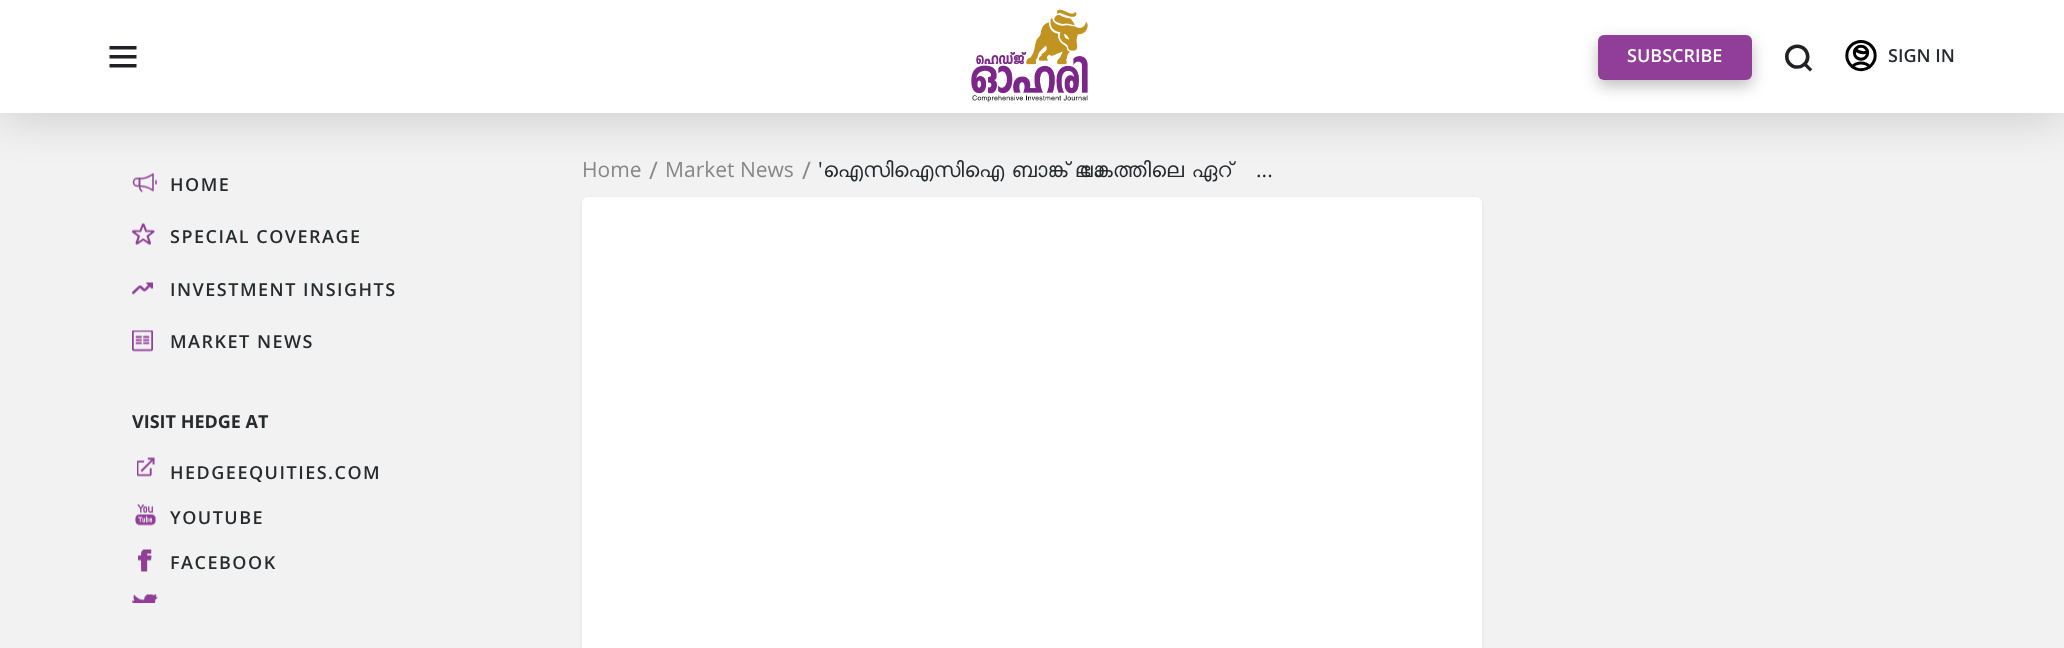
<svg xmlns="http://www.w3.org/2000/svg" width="2064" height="648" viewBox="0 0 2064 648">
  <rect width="100%" height="100%" fill="#f2f2f2"/>
  <image x="132" y="172" width="25" height="21" href="img/5.png"/>
  <path d="M0 6h2064v113H0z" fill="#00000026" filter="blur(22.5px)"/>
  <path d="M0 0h2064v113H0z" fill="#fff"/>
  <image x="109" y="46" width="28" height="22" href="img/1.png"/>
  <image x="971" y="9" width="117" height="93" href="img/2.png"/>
  <rect x="1598" y="41" width="154" height="45" rx="6" fill="#00000040" filter="blur(7.5px)"/>
  <rect x="1598" y="35" width="154" height="45" rx="6" fill="#903e97"/>
  <image x="1785" y="44" width="28" height="28" href="img/3.png"/>
  <image x="1845" y="40" width="32" height="32" href="img/4.png"/>
  <rect x="582" y="198" width="900" height="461" rx="6" fill="#00000014" filter="blur(1.5px)"/>
  <path d="M588 197H1476C1479.5 197 1482 199.5 1482 203V648H582V203C582 199.5 584.5 197 588 197Z" fill="#fff"/>
  <image x="132" y="223" width="23" height="22" href="img/6.png"/>
  <image x="132" y="282" width="21" height="13" href="img/7.png"/>
  <image x="132" y="330" width="21" height="22" href="img/8.png"/>
  <image x="137" y="457" width="18" height="20" href="img/9.png"/>
  <image x="135" y="504" width="21" height="22" href="img/10.png"/>
  <image x="138" y="549" width="14" height="23" href="img/11.png"/>
  <image x="132" y="594" width="26" height="9" href="img/12.png"/>
  <text x="1627" y="62" font-family="Open Sans" font-size="18" font-weight="600" fill="#fff">SUBSCRIBE</text>
  <text x="1888" y="62" font-family="Open Sans" font-size="18" font-weight="600" fill="#262b2e">SIGN IN</text>
  <text x="582" y="177" font-family="Open Sans" font-size="21" fill="#878787">Home</text>
  <text x="649" y="179" font-family="Open Sans" font-size="24" fill="#878787">/</text>
  <text x="665" y="177" font-family="Open Sans" font-size="21" fill="#878787">Market News</text>
  <text x="802" y="179" font-family="Open Sans" font-size="24" fill="#878787">/</text>
  <text x="818" y="177" font-family="Open Sans" font-size="21" fill="#262b2e">'</text>
  <text x="823" y="177" word-spacing="-1" font-family="FreeSans" font-size="21" fill="#262b2e">ഐസിഐസിഐ ബാങ്ക്‌ ലോകത്തിലെ ഏറ്</text>
  <text x="1256" y="177" font-family="Open Sans" font-size="21" fill="#262b2e">...</text>
  <g font-family="Open Sans" font-size="18" font-weight="600" letter-spacing="1.5" fill="#262b2e">
    <text x="170" y="191">HOME</text>
    <text x="170" y="243">SPECIAL COVERAGE</text>
    <text x="170" y="296">INVESTMENT INSIGHTS</text>
    <text x="170" y="348">MARKET NEWS</text>
  </g>
  <text x="132" y="428" font-family="Open Sans" font-size="18" font-weight="bold" fill="#262b2e">VISIT HEDGE AT</text>
  <g font-family="Open Sans" font-size="18" font-weight="600" letter-spacing="1.5" fill="#262b2e">
    <text x="170" y="479">HEDGEEQUITIES.COM</text>
    <text x="170" y="524">YOUTUBE</text>
    <text x="170" y="569">FACEBOOK</text>
  </g>
</svg>
